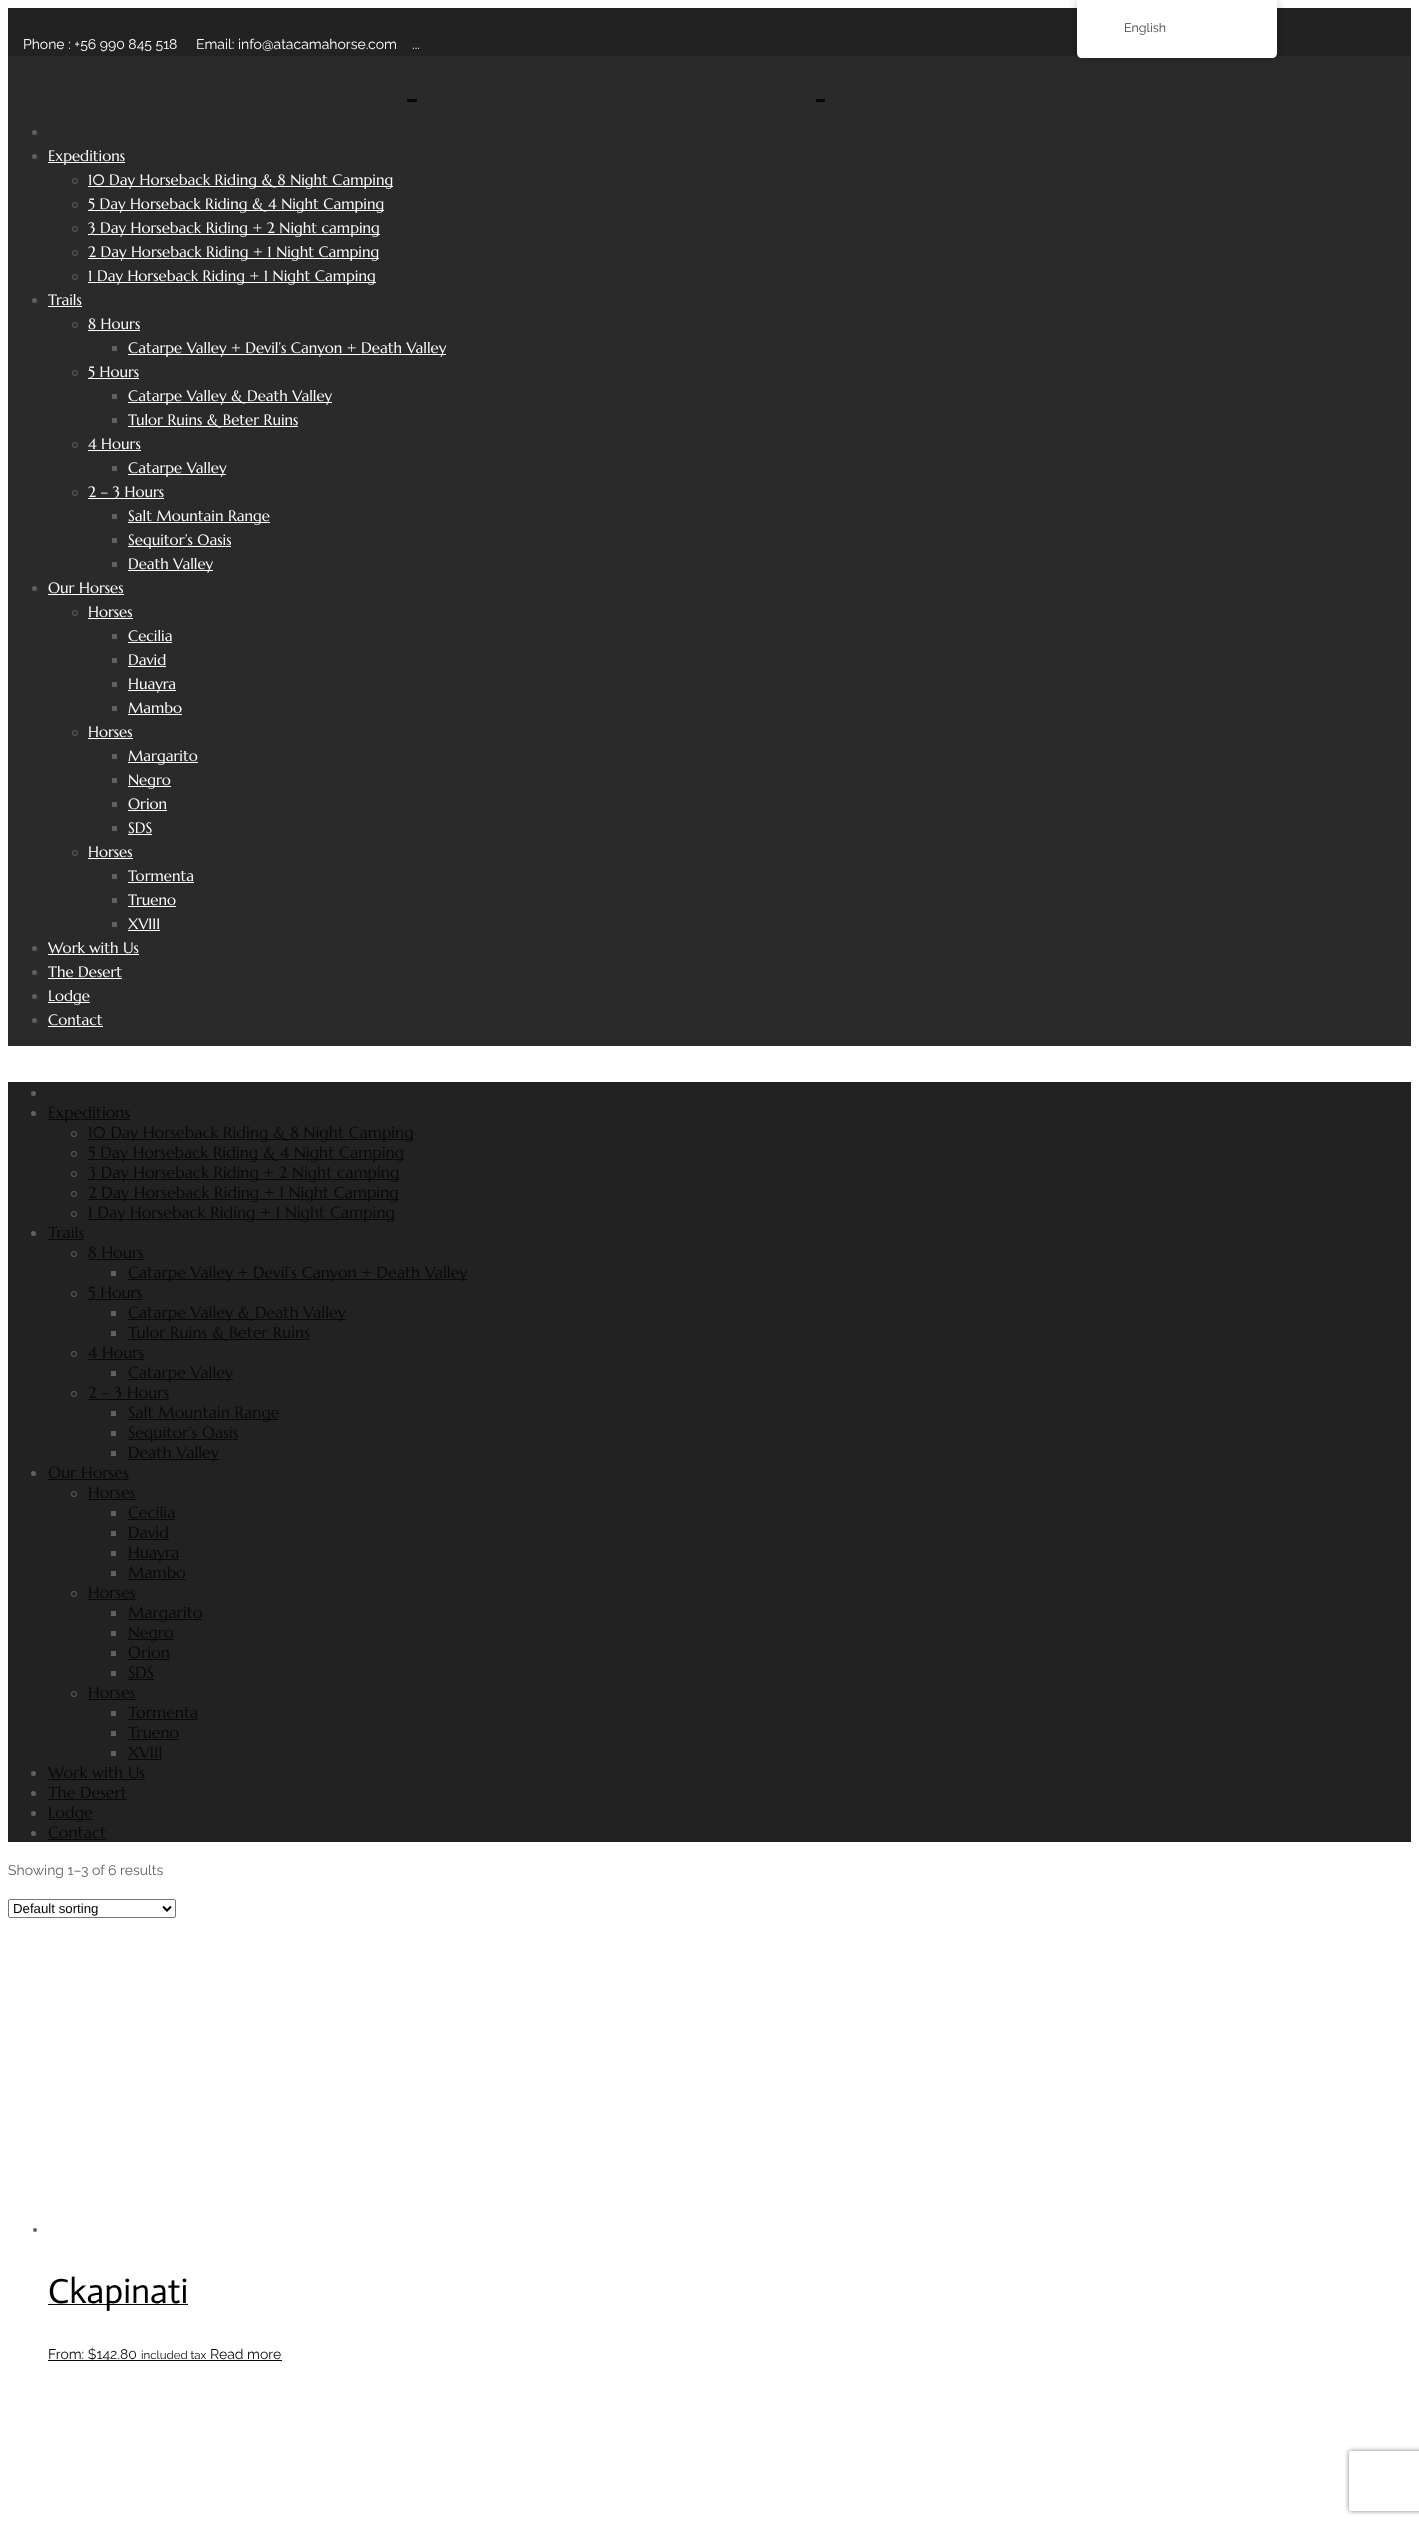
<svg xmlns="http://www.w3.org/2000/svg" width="1419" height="2525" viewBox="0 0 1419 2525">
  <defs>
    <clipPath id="clip1"><path d="M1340 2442H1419V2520H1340ZM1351 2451H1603C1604 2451 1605 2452 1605 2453V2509C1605 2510 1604 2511 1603 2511H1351C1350 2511 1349 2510 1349 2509V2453C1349 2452 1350 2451 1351 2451Z" clip-rule="evenodd"/></clipPath>
  </defs>
  <rect width="100%" height="100%" fill="#fff"/>
  <path d="M8 8h1403v48H8z" fill="#222"/>
  <path d="M8 56h1403v990H8z" fill="#2a2a2a"/>
  <rect x="1077" width="200" height="58" rx="5" fill="#00000040" filter="blur(4px)"/>
  <path d="M1077 0H1277V53C1277 56 1275 58 1272 58H1082C1079 58 1077 56 1077 53Z" fill="#fff"/>
  <rect x="8.5" y="1899.5" width="167" height="18" rx="1.5" fill="none" stroke="#767676"/>
  <path d="M163 1906.5L167 1910.5L171 1906.5" fill="none" stroke="#000" stroke-width="2"/>
  <circle cx="35" cy="2230" r="2" fill="#5f6263"/>
  <path d="M48 2304h140v1H48z" fill="#090909"/>
  <path d="M48 2360h234v1H48z" fill="#090909"/>
  <path d="M407 99h10v3H407z" fill="#090909"/>
  <path d="M816 99h9v3H816z" fill="#090909"/>
  <circle cx="34.5" cy="132.5" r="2.5" fill="#5f6263"/>
  <circle cx="34.5" cy="156.5" r="2.5" fill="#5f6263"/>
  <path d="M48 162h77v1H48z" fill="#fff"/>
  <circle cx="75" cy="181" r="2.5" fill="none" stroke="#5f6263"/>
  <path d="M88 186h305v1H88z" fill="#fff"/>
  <circle cx="75" cy="205" r="2.5" fill="none" stroke="#5f6263"/>
  <path d="M88 210h296v1H88z" fill="#fff"/>
  <circle cx="75" cy="229" r="2.5" fill="none" stroke="#5f6263"/>
  <path d="M88 234h292v1H88z" fill="#fff"/>
  <circle cx="75" cy="253" r="2.5" fill="none" stroke="#5f6263"/>
  <path d="M88 258h291v1H88z" fill="#fff"/>
  <circle cx="75" cy="277" r="2.5" fill="none" stroke="#5f6263"/>
  <path d="M88 282h288v1H88z" fill="#fff"/>
  <circle cx="34.5" cy="300.5" r="2.5" fill="#5f6263"/>
  <path d="M48 306h34v1H48z" fill="#fff"/>
  <circle cx="75" cy="325" r="2.5" fill="none" stroke="#5f6263"/>
  <path d="M88 330h52v1H88z" fill="#fff"/>
  <path d="M112 346h5v5H112z" fill="#5f6263"/>
  <path d="M128 354h318v1H128z" fill="#fff"/>
  <circle cx="75" cy="373" r="2.5" fill="none" stroke="#5f6263"/>
  <path d="M88 378h51v1H88z" fill="#fff"/>
  <path d="M112 394h5v5H112z" fill="#5f6263"/>
  <path d="M128 402h204v1H128z" fill="#fff"/>
  <path d="M112 418h5v5H112z" fill="#5f6263"/>
  <path d="M128 426h170v1H128z" fill="#fff"/>
  <circle cx="75" cy="445" r="2.5" fill="none" stroke="#5f6263"/>
  <path d="M88 450h53v1H88z" fill="#fff"/>
  <path d="M112 466h5v5H112z" fill="#5f6263"/>
  <path d="M128 474h98v1H128z" fill="#fff"/>
  <circle cx="75" cy="493" r="2.5" fill="none" stroke="#5f6263"/>
  <path d="M88 498h76v1H88z" fill="#fff"/>
  <path d="M112 514h5v5H112z" fill="#5f6263"/>
  <path d="M128 522h142v1H128z" fill="#fff"/>
  <path d="M112 538h5v5H112z" fill="#5f6263"/>
  <path d="M128 546h103v1H128z" fill="#fff"/>
  <path d="M112 562h5v5H112z" fill="#5f6263"/>
  <path d="M128 570h85v1H128z" fill="#fff"/>
  <circle cx="34.5" cy="588.5" r="2.5" fill="#5f6263"/>
  <path d="M48 594h76v1H48z" fill="#fff"/>
  <circle cx="75" cy="613" r="2.5" fill="none" stroke="#5f6263"/>
  <path d="M88 618h45v1H88z" fill="#fff"/>
  <path d="M112 634h5v5H112z" fill="#5f6263"/>
  <path d="M128 642h44v1H128z" fill="#fff"/>
  <path d="M112 658h5v5H112z" fill="#5f6263"/>
  <path d="M128 666h38v1H128z" fill="#fff"/>
  <path d="M112 682h5v5H112z" fill="#5f6263"/>
  <path d="M128 690h48v1H128z" fill="#fff"/>
  <path d="M112 706h5v5H112z" fill="#5f6263"/>
  <path d="M128 714h54v1H128z" fill="#fff"/>
  <circle cx="75" cy="733" r="2.5" fill="none" stroke="#5f6263"/>
  <path d="M88 738h45v1H88z" fill="#fff"/>
  <path d="M112 754h5v5H112z" fill="#5f6263"/>
  <path d="M128 762h70v1H128z" fill="#fff"/>
  <path d="M112 778h5v5H112z" fill="#5f6263"/>
  <path d="M128 786h43v1H128z" fill="#fff"/>
  <path d="M112 802h5v5H112z" fill="#5f6263"/>
  <path d="M128 810h39v1H128z" fill="#fff"/>
  <path d="M112 826h5v5H112z" fill="#5f6263"/>
  <path d="M128 834h24v1H128z" fill="#fff"/>
  <circle cx="75" cy="853" r="2.5" fill="none" stroke="#5f6263"/>
  <path d="M88 858h45v1H88z" fill="#fff"/>
  <path d="M112 874h5v5H112z" fill="#5f6263"/>
  <path d="M128 882h66v1H128z" fill="#fff"/>
  <path d="M112 898h5v5H112z" fill="#5f6263"/>
  <path d="M128 906h48v1H128z" fill="#fff"/>
  <path d="M112 922h5v5H112z" fill="#5f6263"/>
  <path d="M128 930h32v1H128z" fill="#fff"/>
  <circle cx="34.5" cy="948.5" r="2.5" fill="#5f6263"/>
  <path d="M48 954h91v1H48z" fill="#fff"/>
  <circle cx="34.5" cy="972.5" r="2.5" fill="#5f6263"/>
  <path d="M48 978h74v1H48z" fill="#fff"/>
  <circle cx="34.5" cy="996.5" r="2.5" fill="#5f6263"/>
  <path d="M48 1002h42v1H48z" fill="#fff"/>
  <circle cx="34.5" cy="1020.5" r="2.5" fill="#5f6263"/>
  <path d="M48 1026h55v1H48z" fill="#fff"/>
  <path d="M8 1082h1403v760H8z" fill="#222"/>
  <circle cx="33.5" cy="1093.5" r="2.5" fill="#5f6263"/>
  <circle cx="33.5" cy="1113.5" r="2.5" fill="#5f6263"/>
  <path d="M48 1119h82v1H48z" fill="#090909"/>
  <circle cx="74" cy="1134" r="2.5" fill="none" stroke="#5f6263"/>
  <path d="M88 1139h326v1H88z" fill="#090909"/>
  <circle cx="74" cy="1154" r="2.5" fill="none" stroke="#5f6263"/>
  <path d="M88 1159h316v1H88z" fill="#090909"/>
  <circle cx="74" cy="1174" r="2.5" fill="none" stroke="#5f6263"/>
  <path d="M88 1179h311v1H88z" fill="#090909"/>
  <circle cx="74" cy="1194" r="2.5" fill="none" stroke="#5f6263"/>
  <path d="M88 1199h311v1H88z" fill="#090909"/>
  <circle cx="74" cy="1214" r="2.5" fill="none" stroke="#5f6263"/>
  <path d="M88 1219h307v1H88z" fill="#090909"/>
  <circle cx="33.5" cy="1233.5" r="2.5" fill="#5f6263"/>
  <path d="M48 1239h36v1H48z" fill="#090909"/>
  <circle cx="74" cy="1254" r="2.5" fill="none" stroke="#5f6263"/>
  <path d="M88 1259h56v1H88z" fill="#090909"/>
  <path d="M111 1271h5v5H111z" fill="#5f6263"/>
  <path d="M128 1279h339v1H128z" fill="#090909"/>
  <circle cx="74" cy="1294" r="2.5" fill="none" stroke="#5f6263"/>
  <path d="M88 1299h55v1H88z" fill="#090909"/>
  <path d="M111 1311h5v5H111z" fill="#5f6263"/>
  <path d="M128 1319h218v1H128z" fill="#090909"/>
  <path d="M111 1331h5v5H111z" fill="#5f6263"/>
  <path d="M128 1339h182v1H128z" fill="#090909"/>
  <circle cx="74" cy="1354" r="2.5" fill="none" stroke="#5f6263"/>
  <path d="M88 1359h56v1H88z" fill="#090909"/>
  <path d="M111 1371h5v5H111z" fill="#5f6263"/>
  <path d="M128 1379h105v1H128z" fill="#090909"/>
  <circle cx="74" cy="1394" r="2.5" fill="none" stroke="#5f6263"/>
  <path d="M88 1399h81v1H88z" fill="#090909"/>
  <path d="M111 1411h5v5H111z" fill="#5f6263"/>
  <path d="M128 1419h151v1H128z" fill="#090909"/>
  <path d="M111 1431h5v5H111z" fill="#5f6263"/>
  <path d="M128 1439h110v1H128z" fill="#090909"/>
  <path d="M111 1451h5v5H111z" fill="#5f6263"/>
  <path d="M128 1459h91v1H128z" fill="#090909"/>
  <circle cx="33.5" cy="1473.5" r="2.5" fill="#5f6263"/>
  <path d="M48 1479h81v1H48z" fill="#090909"/>
  <circle cx="74" cy="1494" r="2.5" fill="none" stroke="#5f6263"/>
  <path d="M88 1499h48v1H88z" fill="#090909"/>
  <path d="M111 1511h5v5H111z" fill="#5f6263"/>
  <path d="M128 1519h47v1H128z" fill="#090909"/>
  <path d="M111 1531h5v5H111z" fill="#5f6263"/>
  <path d="M128 1539h41v1H128z" fill="#090909"/>
  <path d="M111 1551h5v5H111z" fill="#5f6263"/>
  <path d="M128 1559h51v1H128z" fill="#090909"/>
  <path d="M111 1571h5v5H111z" fill="#5f6263"/>
  <path d="M128 1579h58v1H128z" fill="#090909"/>
  <circle cx="74" cy="1594" r="2.5" fill="none" stroke="#5f6263"/>
  <path d="M88 1599h48v1H88z" fill="#090909"/>
  <path d="M111 1611h5v5H111z" fill="#5f6263"/>
  <path d="M128 1619h74v1H128z" fill="#090909"/>
  <path d="M111 1631h5v5H111z" fill="#5f6263"/>
  <path d="M128 1639h46v1H128z" fill="#090909"/>
  <path d="M111 1651h5v5H111z" fill="#5f6263"/>
  <path d="M128 1659h42v1H128z" fill="#090909"/>
  <path d="M111 1671h5v5H111z" fill="#5f6263"/>
  <path d="M128 1679h26v1H128z" fill="#090909"/>
  <circle cx="74" cy="1694" r="2.5" fill="none" stroke="#5f6263"/>
  <path d="M88 1699h48v1H88z" fill="#090909"/>
  <path d="M111 1711h5v5H111z" fill="#5f6263"/>
  <path d="M128 1719h70v1H128z" fill="#090909"/>
  <path d="M111 1731h5v5H111z" fill="#5f6263"/>
  <path d="M128 1739h51v1H128z" fill="#090909"/>
  <path d="M111 1751h5v5H111z" fill="#5f6263"/>
  <path d="M128 1759h34v1H128z" fill="#090909"/>
  <circle cx="33.5" cy="1773.5" r="2.5" fill="#5f6263"/>
  <path d="M48 1779h97v1H48z" fill="#090909"/>
  <circle cx="33.5" cy="1793.5" r="2.5" fill="#5f6263"/>
  <path d="M48 1799h79v1H48z" fill="#090909"/>
  <circle cx="33.5" cy="1813.5" r="2.5" fill="#5f6263"/>
  <path d="M48 1819h45v1H48z" fill="#090909"/>
  <circle cx="33.5" cy="1833.5" r="2.5" fill="#5f6263"/>
  <path d="M48 1839h58v1H48z" fill="#090909"/>
  <g clip-path="url(#clip1)">
    <rect x="1349" y="2451" width="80" height="60" rx="2" fill="#808080" filter="blur(2.5px)"/>
  </g>
  <text x="1124" y="32" font-family="Raleway" font-size="12.5" font-weight="100" fill="#404040">English</text>
  <text x="8" y="1875" font-family="Raleway" font-size="14" font-weight="100" fill="#5f6263">Showing 1–3 of 6 results</text>
  <text x="13" y="1913" font-family="Liberation Sans" font-size="13.25" fill="#000">Default sorting</text>
  <text x="48" y="2303" font-family="Actor" font-size="35" fill="#000">Ckapinati</text>
  <text x="48" y="2359" font-family="Raleway" font-size="14" font-weight="100" fill="#090909">From: $142.80</text>
  <text x="141" y="2359" font-family="Raleway" font-size="11.5" font-weight="100" fill="#090909">included tax</text>
  <text x="210" y="2359" font-family="Raleway" font-size="14" font-weight="100" fill="#090909">Read more</text>
  <g font-family="Raleway" font-size="14" font-weight="100" fill="#fff">
    <text x="23" y="49">Phone : +56 990 845 518</text>
    <text x="196" y="49">Email: info@atacamahorse.com</text>
    <text x="412" y="49">...</text>
  </g>
  <g font-family="Marcellus" font-size="15" fill="#fff">
    <text x="48" y="161">Expeditions</text>
    <text x="88" y="185">10 Day Horseback Riding &amp; 8 Night Camping</text>
    <text x="88" y="209">5 Day Horseback Riding &amp; 4 Night Camping</text>
    <text x="88" y="233">3 Day Horseback Riding + 2 Night camping</text>
    <text x="88" y="257">2 Day Horseback Riding + 1 Night Camping</text>
    <text x="88" y="281">1 Day Horseback Riding + 1 Night Camping</text>
    <text x="48" y="305">Trails</text>
    <text x="88" y="329">8 Hours</text>
    <text x="128" y="353">Catarpe Valley + Devil’s Canyon + Death Valley</text>
    <text x="88" y="377">5 Hours</text>
    <text x="128" y="401">Catarpe Valley &amp; Death Valley</text>
    <text x="128" y="425">Tulor Ruins &amp; Beter Ruins</text>
    <text x="88" y="449">4 Hours</text>
    <text x="128" y="473">Catarpe Valley</text>
    <text x="88" y="497">2 – 3 Hours</text>
    <text x="128" y="521">Salt Mountain Range</text>
    <text x="128" y="545">Sequitor’s Oasis</text>
    <text x="128" y="569">Death Valley</text>
    <text x="48" y="593">Our Horses</text>
    <text x="88" y="617">Horses</text>
    <text x="128" y="641">Cecilia</text>
    <text x="128" y="665">David</text>
    <text x="128" y="689">Huayra</text>
    <text x="128" y="713">Mambo</text>
    <text x="88" y="737">Horses</text>
    <text x="128" y="761">Margarito</text>
    <text x="128" y="785">Negro</text>
    <text x="128" y="809">Orion</text>
    <text x="128" y="833">SDS</text>
    <text x="88" y="857">Horses</text>
    <text x="128" y="881">Tormenta</text>
    <text x="128" y="905">Trueno</text>
    <text x="128" y="929">XVIII</text>
    <text x="48" y="953">Work with Us</text>
    <text x="48" y="977">The Desert</text>
    <text x="48" y="1001">Lodge</text>
    <text x="48" y="1025">Contact</text>
  </g>
  <g font-family="Marcellus" font-size="16" fill="#090909">
    <text x="48" y="1118">Expeditions</text>
    <text x="88" y="1138">10 Day Horseback Riding &amp; 8 Night Camping</text>
    <text x="88" y="1158">5 Day Horseback Riding &amp; 4 Night Camping</text>
    <text x="88" y="1178">3 Day Horseback Riding + 2 Night camping</text>
    <text x="88" y="1198">2 Day Horseback Riding + 1 Night Camping</text>
    <text x="88" y="1218">1 Day Horseback Riding + 1 Night Camping</text>
    <text x="48" y="1238">Trails</text>
    <text x="88" y="1258">8 Hours</text>
    <text x="128" y="1278">Catarpe Valley + Devil’s Canyon + Death Valley</text>
    <text x="88" y="1298">5 Hours</text>
    <text x="128" y="1318">Catarpe Valley &amp; Death Valley</text>
    <text x="128" y="1338">Tulor Ruins &amp; Beter Ruins</text>
    <text x="88" y="1358">4 Hours</text>
    <text x="128" y="1378">Catarpe Valley</text>
    <text x="88" y="1398">2 – 3 Hours</text>
    <text x="128" y="1418">Salt Mountain Range</text>
    <text x="128" y="1438">Sequitor’s Oasis</text>
    <text x="128" y="1458">Death Valley</text>
    <text x="48" y="1478">Our Horses</text>
    <text x="88" y="1498">Horses</text>
    <text x="128" y="1518">Cecilia</text>
    <text x="128" y="1538">David</text>
    <text x="128" y="1558">Huayra</text>
    <text x="128" y="1578">Mambo</text>
    <text x="88" y="1598">Horses</text>
    <text x="128" y="1618">Margarito</text>
    <text x="128" y="1638">Negro</text>
    <text x="128" y="1658">Orion</text>
    <text x="128" y="1678">SDS</text>
    <text x="88" y="1698">Horses</text>
    <text x="128" y="1718">Tormenta</text>
    <text x="128" y="1738">Trueno</text>
    <text x="128" y="1758">XVIII</text>
    <text x="48" y="1778">Work with Us</text>
    <text x="48" y="1798">The Desert</text>
    <text x="48" y="1818">Lodge</text>
    <text x="48" y="1838">Contact</text>
  </g>
</svg>
